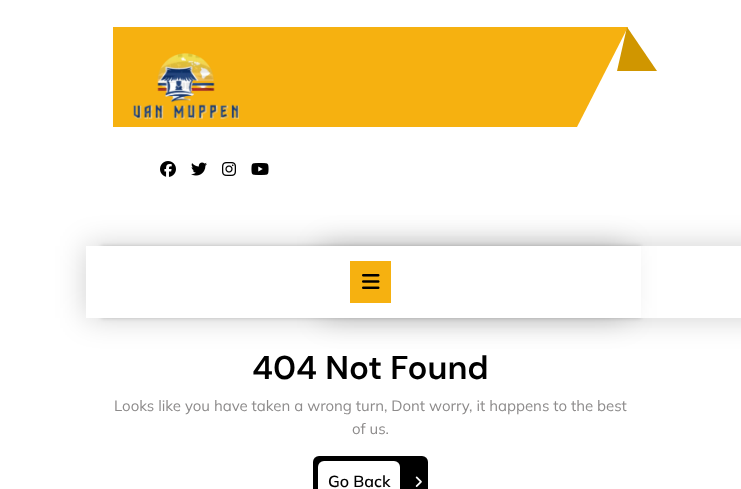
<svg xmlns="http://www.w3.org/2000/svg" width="741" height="489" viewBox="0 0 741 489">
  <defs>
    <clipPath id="clip1"><path d="M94 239H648V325H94ZM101 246H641V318H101Z" clip-rule="evenodd"/></clipPath>
    <clipPath id="clip2"><path d="M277 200H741V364H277ZM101 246H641V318H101Z" clip-rule="evenodd"/></clipPath>
    <clipPath id="clip3"><path d="M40 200H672V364H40ZM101 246H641V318H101Z" clip-rule="evenodd"/></clipPath>
  </defs>
  <rect width="100%" height="100%" fill="#fff"/>
  <path d="M113 27V127H577L628 27Z" fill="#f6b110"/>
  <path d="M657 71H617L627 27Z" fill="#d09600"/>
  <image x="133" y="53" width="106" height="67" href="img/1.png"/>
  <image x="160" y="161" width="16" height="16" href="img/2.png"/>
  <image x="191" y="162" width="16" height="14" href="img/3.png"/>
  <image x="222" y="162" width="14" height="14" href="img/4.png"/>
  <image x="251" y="163" width="18" height="12" href="img/5.png"/>
  <g clip-path="url(#clip1)">
    <path d="M101 246h540v72H101z" fill="#00000030" filter="blur(2px)"/>
  </g>
  <g clip-path="url(#clip2)">
    <path d="M323 246h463v72H323z" fill="#00000030" filter="blur(15px)"/>
  </g>
  <path d="M641 246h100v72H641z" fill="#fff"/>
  <g clip-path="url(#clip3)">
    <path d="M86 246h540v72H86z" fill="#00000030" filter="blur(15px)"/>
  </g>
  <path d="M86 246h15v72H86z" fill="#fff"/>
  <path d="M350 261h41v42H350z" fill="#f6b110"/>
  <image x="362" y="274" width="18" height="15" href="img/6.png"/>
  <rect x="313" y="456" width="115" height="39" rx="6" fill="#000"/>
  <rect x="318" y="461" width="82" height="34" rx="6" fill="#fff"/>
  <image x="415" y="476" width="7" height="11" href="img/7.png"/>
  <text x="252" y="379" font-family="DM Sans" font-size="33" font-weight="600" fill="#000">404 Not Found</text>
  <g font-family="Mulish" font-size="15" fill="#8d8b8b">
    <text x="114" y="411">Looks like you have taken a wrong turn, Dont worry, it happens to the best</text>
    <text x="352" y="434">of us.</text>
  </g>
  <text x="328" y="487" font-family="Mulish" font-size="16" font-weight="600" fill="#000">Go Back</text>
</svg>
